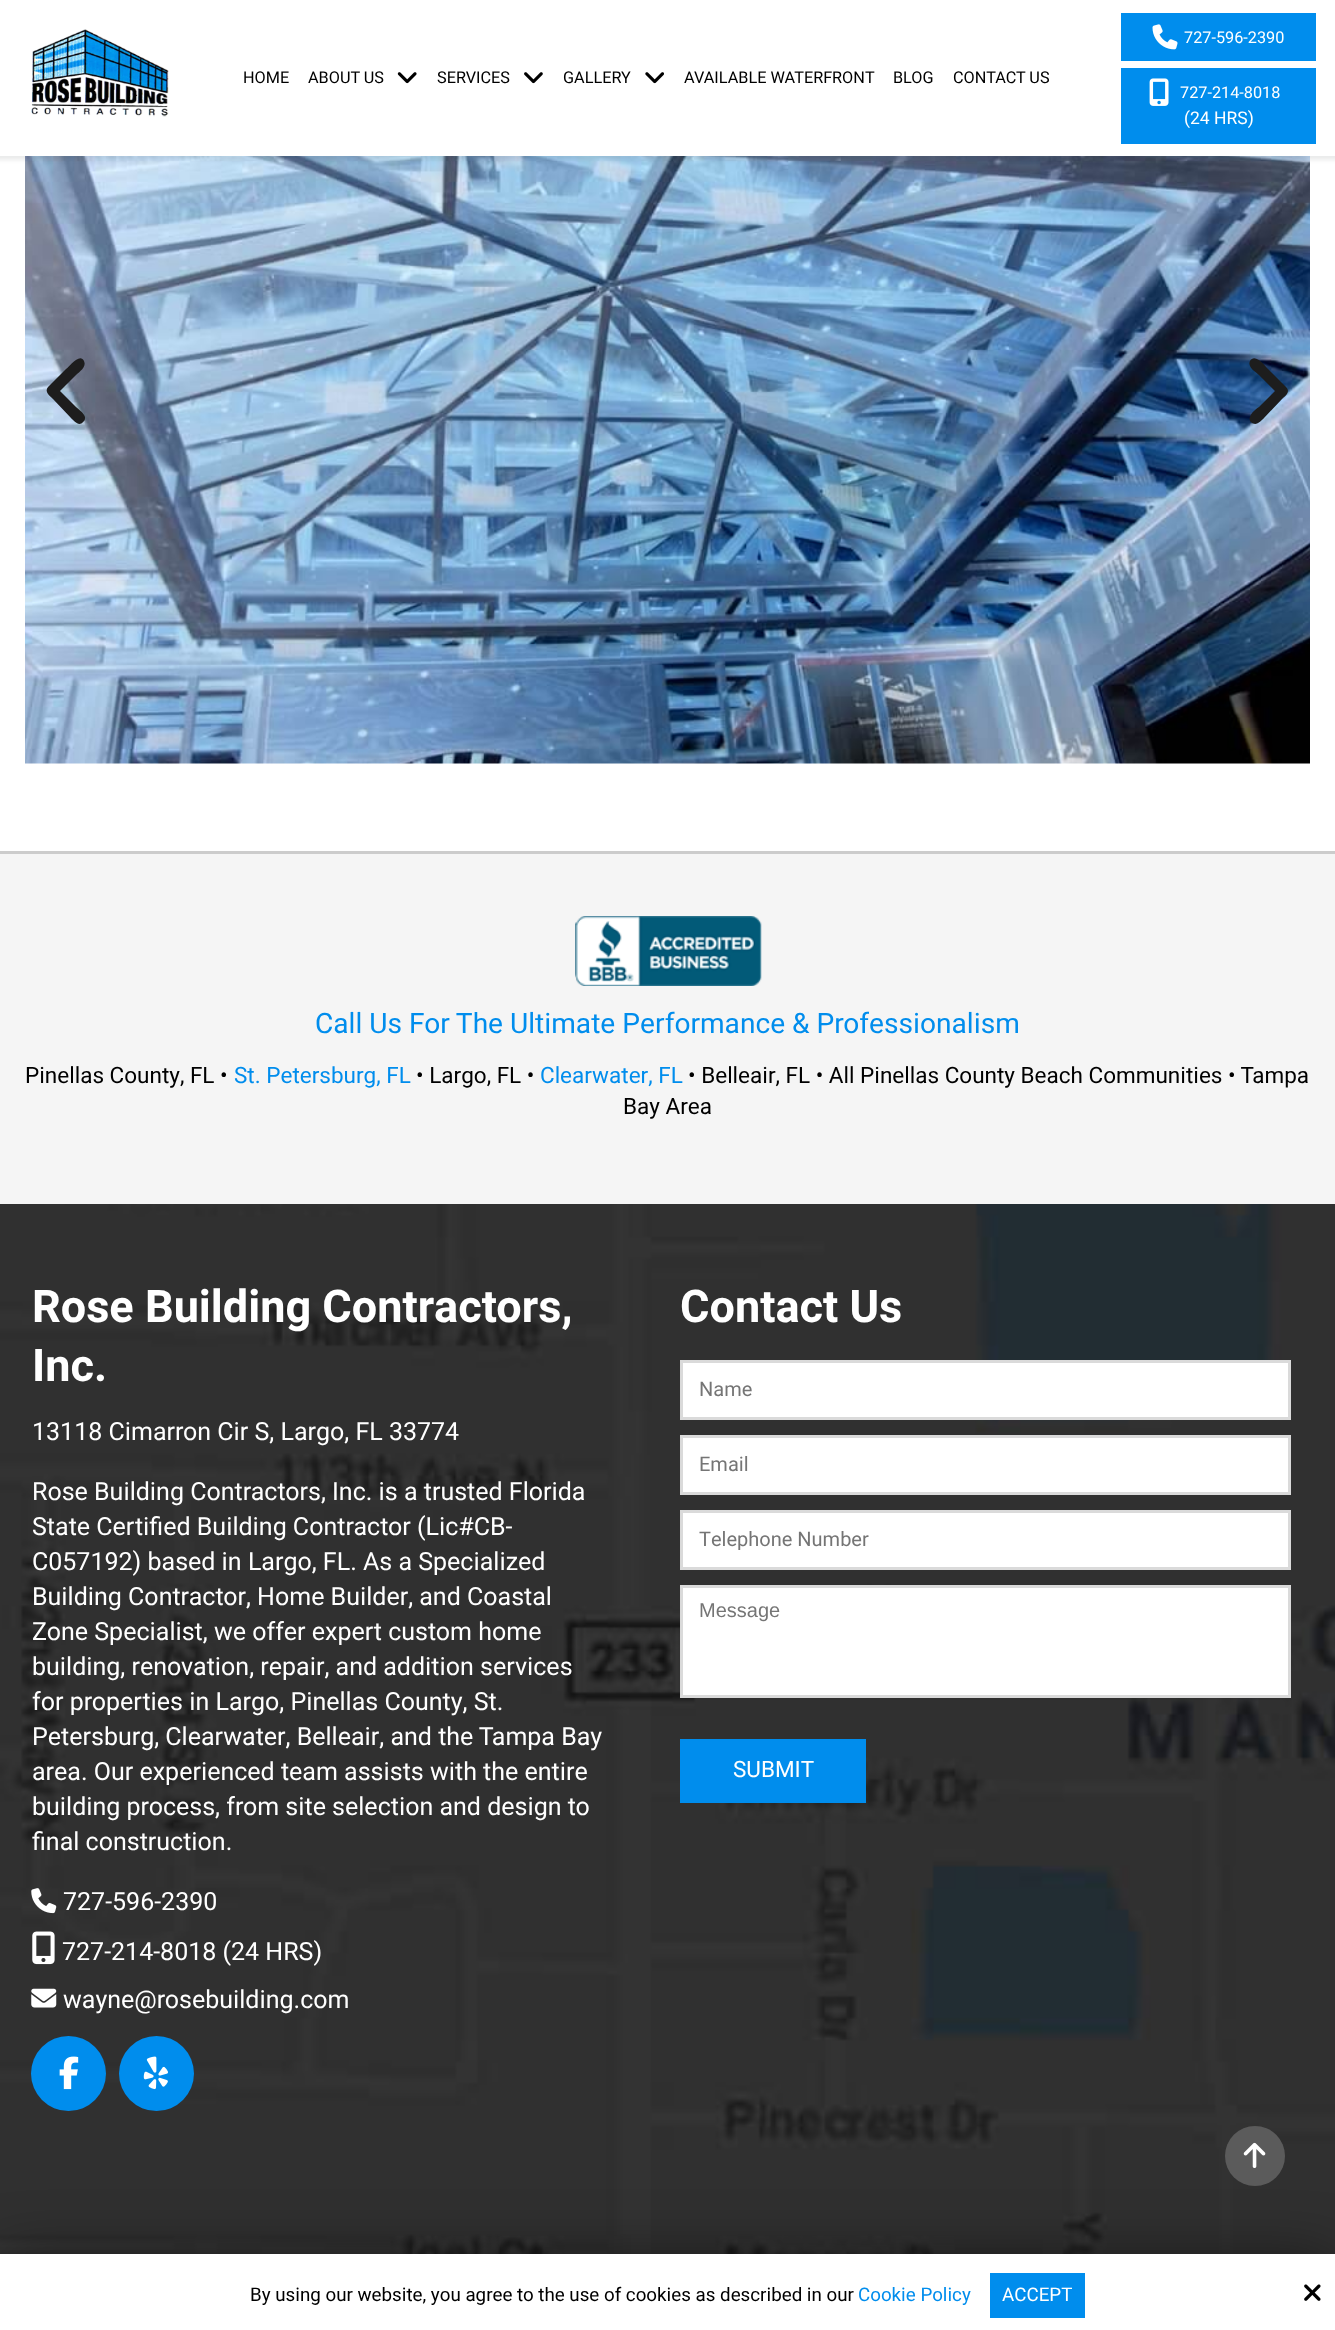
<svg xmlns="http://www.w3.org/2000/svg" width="1335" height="2330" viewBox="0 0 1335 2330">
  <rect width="100%" height="100%" fill="#fff"/>
  <image x="25" y="156" width="1285" height="608" href="img/7.png"/>
  <path d="M-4 -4h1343v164H-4z" fill="#34373e1a" filter="blur(2px)"/>
  <path d="M0 0h1335v156H0z" fill="#fff"/>
  <image x="31" y="29" width="138" height="88" href="img/1.png"/>
  <image x="397" y="72" width="20" height="12" href="img/2.png"/>
  <image x="524" y="72" width="19" height="12" href="img/3.png"/>
  <image x="645" y="72" width="19" height="12" href="img/4.png"/>
  <path d="M1121 13h195v48H1121z" fill="#008ded"/>
  <image x="1152" y="24" width="26" height="26" href="img/5.png"/>
  <path d="M1121 68h195v76H1121z" fill="#008ded"/>
  <image x="1149" y="78" width="20" height="28" href="img/6.png"/>
  <path d="M48 387C44 392 50 396 53 399L71 418C74 421 79 427 83 422C85 421 85 419 85 417C84 413 78 409 76 407L60 391L76 375C79 372 87 367 84 361C80 352 69 367 66 369Z" fill="#1d1d1d"/>
  <path d="M1286 387C1291 392 1285 396 1282 399L1264 418C1261 421 1256 427 1251 422C1250 421 1249 419 1250 417C1251 413 1256 409 1259 407L1275 391L1259 375C1256 372 1247 367 1250 361C1255 352 1266 367 1268 369Z" fill="#1d1d1d"/>
  <path d="M0 854h1335v350H0z" fill="#f5f5f5"/>
  <path d="M0 851h1335v3H0z" fill="#ccc"/>
  <image x="575" y="916" width="187" height="70" href="img/8.png"/>
  <image x="0" y="1204" width="1335" height="1050" href="img/9.png"/>
  <image x="31" y="1888" width="26" height="26" href="img/10.png"/>
  <image x="32" y="1931" width="23" height="34" href="img/11.png"/>
  <image x="31" y="1988" width="26" height="20" href="img/12.png"/>
  <circle cx="68.5" cy="2073.5" r="37.5" fill="#008ded"/>
  <image x="59" y="2056" width="20" height="34" href="img/13.png"/>
  <circle cx="156.5" cy="2073.5" r="37.5" fill="#008ded"/>
  <image x="143" y="2056" width="25" height="34" href="img/14.png"/>
  <path d="M681.5 1361.5h608v57H681.5z" fill="#fff" stroke="#dadada" stroke-width="3"/>
  <path d="M681.5 1436.5h608v57H681.5z" fill="#fff" stroke="#dadada" stroke-width="3"/>
  <path d="M681.5 1511.5h608v57H681.5z" fill="#fff" stroke="#dadada" stroke-width="3"/>
  <path d="M681.5 1586.5h608v110H681.5z" fill="#fff" stroke="#dadada" stroke-width="3"/>
  <path d="M680 1739h186v64H680z" fill="#008ded"/>
  <circle cx="1255" cy="2156" r="30" fill="#5b5b5b"/>
  <image x="1243" y="2142" width="23" height="26" href="img/15.png"/>
  <path d="M0 2260h1335v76H0z" fill="#00000080" filter="blur(31px)"/>
  <path d="M0 2254h1335v76H0z" fill="#fff"/>
  <path d="M990 2273h95v45H990z" fill="#008ded"/>
  <image x="1304" y="2284" width="17" height="17" href="img/16.png"/>
  <g font-family="Heebo" font-size="16.25" fill="#000">
    <text x="243" y="83">HOME</text>
    <text x="308" y="83">ABOUT US</text>
    <text x="437" y="83">SERVICES</text>
    <text x="563" y="83">GALLERY</text>
    <text x="684" y="83">AVAILABLE WATERFRONT</text>
    <text x="893" y="83">BLOG</text>
    <text x="953" y="83">CONTACT US</text>
  </g>
  <g font-family="Heebo" font-size="16.25" fill="#fff">
    <text x="1184" y="43">727-596-2390</text>
    <text x="1180" y="98">727-214-8018</text>
  </g>
  <text x="1184" y="124" font-family="Heebo" font-size="17.5" fill="#fff">(24 HRS)</text>
  <text x="315" y="1033" font-family="Heebo" font-size="28.1" fill="#008ded">Call Us For The Ultimate Performance &amp; Professionalism</text>
  <text x="25" y="1083" font-family="Heebo" font-size="22.5" fill="#000">Pinellas County, FL •</text>
  <text x="234" y="1083" font-family="Heebo" font-size="22.5" fill="#008ded">St. Petersburg, FL</text>
  <text x="416" y="1083" font-family="Heebo" font-size="22.5" fill="#000">• Largo, FL •</text>
  <text x="540" y="1083" font-family="Heebo" font-size="22.5" fill="#008ded">Clearwater, FL</text>
  <g font-family="Heebo" font-size="22.5" fill="#000">
    <text x="688" y="1083">• Belleair, FL • All Pinellas County Beach Communities • Tampa</text>
    <text x="623" y="1114">Bay Area</text>
  </g>
  <g font-family="Heebo" font-size="45" font-weight="bold" fill="#fff">
    <text x="32" y="1322">Rose Building Contractors,</text>
    <text x="32" y="1381">Inc.</text>
  </g>
  <g font-family="Heebo" font-size="25" fill="#fff">
    <text x="32" y="1440">13118 Cimarron Cir S, Largo, FL 33774</text>
    <text x="32" y="1500">Rose Building Contractors, Inc. is a trusted Florida</text>
    <text x="32" y="1535">State Certified Building Contractor (Lic#CB-</text>
    <text x="32" y="1570">C057192) based in Largo, FL. As a Specialized</text>
    <text x="32" y="1605">Building Contractor, Home Builder, and Coastal</text>
    <text x="32" y="1640">Zone Specialist, we offer expert custom home</text>
    <text x="32" y="1675">building, renovation, repair, and addition services</text>
    <text x="32" y="1710">for properties in Largo, Pinellas County, St.</text>
    <text x="32" y="1745">Petersburg, Clearwater, Belleair, and the Tampa Bay</text>
    <text x="32" y="1780">area. Our experienced team assists with the entire</text>
    <text x="32" y="1815">building process, from site selection and design to</text>
    <text x="32" y="1850">final construction.</text>
    <text x="63" y="1910">727-596-2390</text>
    <text x="62" y="1960">727-214-8018 (24 HRS)</text>
    <text x="63" y="2008">wayne@rosebuilding.com</text>
  </g>
  <text x="680" y="1322" font-family="Heebo" font-size="45" font-weight="bold" fill="#fff">Contact Us</text>
  <g font-family="Heebo" font-size="20" fill="#757575">
    <text x="699" y="1396">Name</text>
    <text x="699" y="1471">Email</text>
    <text x="699" y="1546">Telephone Number</text>
  </g>
  <text x="699" y="1617" font-family="Liberation Sans" font-size="20" fill="#757575">Message</text>
  <text x="733" y="1777" font-family="Heebo" font-size="22.5" fill="#fff">SUBMIT</text>
  <text x="250" y="2301" font-family="Heebo" font-size="18.75" fill="#000">By using our website, you agree to the use of cookies as described in our</text>
  <text x="858" y="2301" font-family="Heebo" font-size="18.75" fill="#008ded">Cookie Policy</text>
  <text x="1002" y="2301" font-family="Heebo" font-size="18.75" fill="#fff">ACCEPT</text>
</svg>
